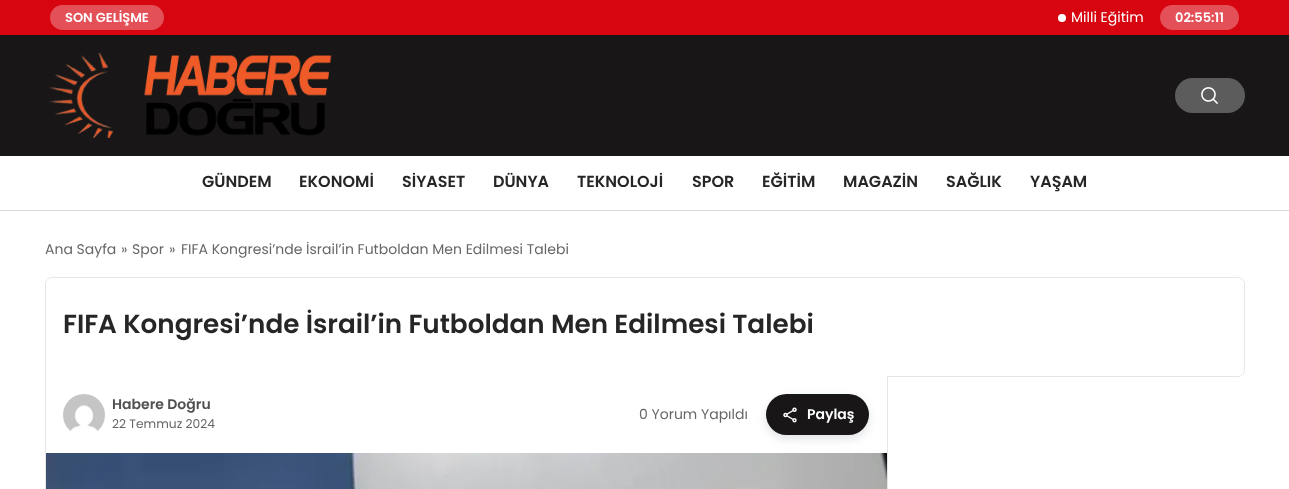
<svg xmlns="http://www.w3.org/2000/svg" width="1289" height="489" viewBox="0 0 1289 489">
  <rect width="100%" height="100%" fill="#fff"/>
  <path d="M0 0h1289v35H0z" fill="#d7050f"/>
  <rect x="50" y="5" width="114" height="25" rx="12.5" fill="#e35057"/>
  <circle cx="1062" cy="18" r="4" fill="#fff"/>
  <rect x="1160" y="5" width="79" height="25" rx="12.5" fill="#e35057"/>
  <path d="M0 35h1289v121H0z" fill="#181616"/>
  <image x="49" y="53" width="283" height="85" href="img/1.png"/>
  <rect x="1175" y="78" width="70" height="35" rx="17.5" fill="#5d5c5c"/>
  <image x="1201" y="87" width="17" height="17" href="img/2.png"/>
  <path d="M0 210h1289v1H0z" fill="#d9d9d9"/>
  <path d="M52 277.5H1238C1241.5 277.5 1244.5 280.5 1244.5 284V370C1244.5 373.5 1241.5 376.5 1238 376.5H45.5V284C45.5 280.5 48.5 277.5 52 277.5Z" fill="none" stroke="#e6e6e6"/>
  <path d="M46 376H887C887.5 376 888 376.5 888 377V489C888 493 885 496 881 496H52C48 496 45 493 45 489V377C45 376.5 45.5 376 46 376Z" fill="#fff"/>
  <path d="M46 376H887C888 376 888 376 888 377V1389C888 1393 885 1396 881 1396H52C48 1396 45 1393 45 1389V377C45 376 45 376 46 376ZM46 376H887V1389C887 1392 884 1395 881 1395H52C49 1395 46 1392 46 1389Z" fill="#0000001a" fill-rule="evenodd"/>
  <image x="63" y="394" width="42" height="37" href="img/3.png"/>
  <image x="46" y="453" width="841" height="36" href="img/5.png"/>
  <rect x="766" y="398" width="103" height="41" rx="20.5" fill="#6b728033" filter="blur(5px)"/>
  <rect x="766" y="394" width="103" height="41" rx="20.5" fill="#181616"/>
  <image x="783" y="407" width="14" height="16" href="img/4.png"/>
  <text x="65" y="22" font-family="Poppins" font-size="13" font-weight="600" fill="#fff">SON GELİŞME</text>
  <text x="1071" y="22" font-family="Poppins" font-size="14" fill="#fff">Milli Eğitim</text>
  <text x="1175" y="22" font-family="Poppins" font-size="13" font-weight="600" fill="#fff">02:55:11</text>
  <g font-family="Poppins" font-size="16" font-weight="600" fill="#262626">
    <text x="202" y="187">GÜNDEM</text>
    <text x="299" y="187">EKONOMİ</text>
    <text x="402" y="187">SİYASET</text>
    <text x="493" y="187">DÜNYA</text>
    <text x="577" y="187">TEKNOLOJİ</text>
    <text x="692" y="187">SPOR</text>
    <text x="762" y="187">EĞİTİM</text>
    <text x="843" y="187">MAGAZİN</text>
    <text x="946" y="187">SAĞLIK</text>
    <text x="1030" y="187">YAŞAM</text>
  </g>
  <g font-family="Poppins" font-size="14" fill="#676767">
    <text x="45" y="254">Ana Sayfa</text>
    <text x="121" y="254">»</text>
    <text x="132" y="254">Spor</text>
    <text x="169" y="254">»</text>
    <text x="181" y="254">FIFA Kongresi’nde İsrail’in Futboldan Men Edilmesi Talebi</text>
  </g>
  <text x="63" y="333" font-family="Poppins" font-size="26.25" font-weight="600" fill="#262626">FIFA Kongresi’nde İsrail’in Futboldan Men Edilmesi Talebi</text>
  <text x="112" y="409" font-family="Poppins" font-size="14" font-weight="600" fill="#515151">Habere Doğru</text>
  <text x="112" y="428" font-family="Poppins" font-size="12.25" fill="#676767">22 Temmuz 2024</text>
  <text x="639" y="419" font-family="Poppins" font-size="14" fill="#676767">0 Yorum Yapıldı</text>
  <text x="807" y="419" font-family="Poppins" font-size="14" font-weight="600" fill="#fff">Paylaş</text>
</svg>
